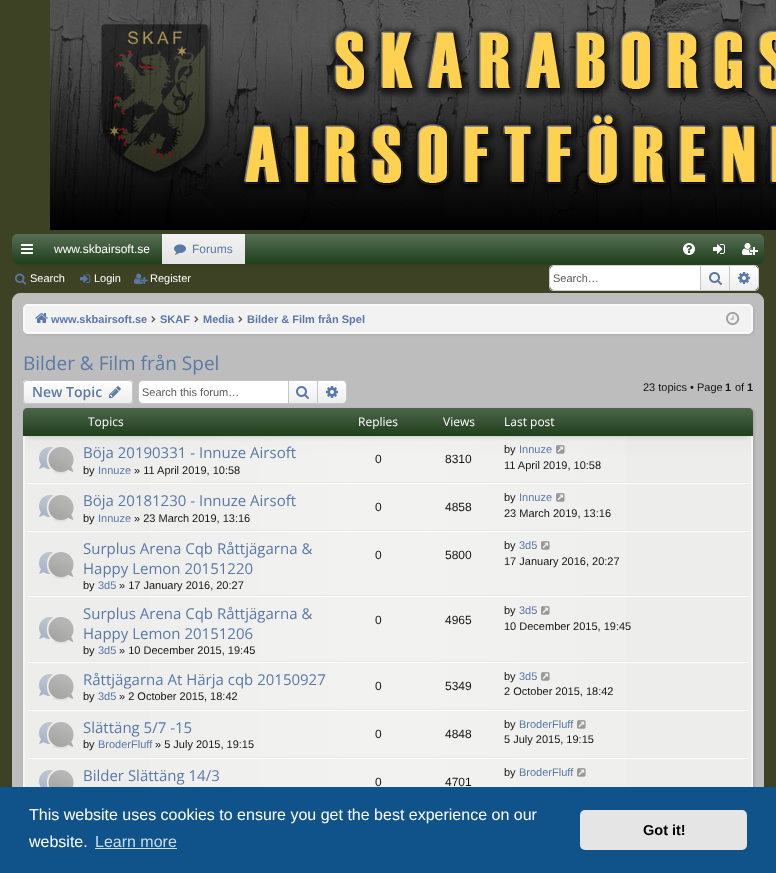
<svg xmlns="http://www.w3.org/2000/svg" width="776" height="873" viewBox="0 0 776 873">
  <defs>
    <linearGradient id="g1" gradientUnits="userSpaceOnUse" x1="388" y1="234" x2="388" y2="264"><stop offset="0" stop-color="#fff" stop-opacity="0.25"/><stop offset="1" stop-color="#fff" stop-opacity="0"/></linearGradient>
    <linearGradient id="g2" gradientUnits="userSpaceOnUse" x1="204" y1="234" x2="204" y2="264"><stop offset="0" stop-color="#f2f2f2"/><stop offset="1" stop-color="#e4e4e4"/></linearGradient>
    <linearGradient id="g3" gradientUnits="userSpaceOnUse" x1="715" y1="266" x2="715" y2="290"><stop offset="0" stop-color="#fff"/><stop offset="1" stop-color="#eee"/></linearGradient>
    <linearGradient id="g4" gradientUnits="userSpaceOnUse" x1="744" y1="266" x2="744" y2="290"><stop offset="0" stop-color="#fff"/><stop offset="1" stop-color="#fff" stop-opacity="0"/></linearGradient>
    <clipPath id="clip1"><rect x="23" y="380" width="110" height="24" rx="4"/></clipPath>
    <linearGradient id="g5" gradientUnits="userSpaceOnUse" x1="78" y1="381" x2="78" y2="403"><stop offset="0" stop-color="#fff"/><stop offset="1" stop-color="#fff" stop-opacity="0"/></linearGradient>
    <linearGradient id="g6" gradientUnits="userSpaceOnUse" x1="303" y1="381" x2="303" y2="403"><stop offset="0" stop-color="#fff"/><stop offset="1" stop-color="#eee"/></linearGradient>
    <linearGradient id="g7" gradientUnits="userSpaceOnUse" x1="332" y1="381" x2="332" y2="403"><stop offset="0" stop-color="#fff"/><stop offset="1" stop-color="#fff" stop-opacity="0"/></linearGradient>
    <clipPath id="clip2"><rect x="23" y="408" width="730" height="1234" rx="5"/></clipPath>
    <linearGradient id="g8" gradientUnits="userSpaceOnUse" x1="388" y1="409" x2="388" y2="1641"><stop offset="0" stop-color="#ccc" stop-opacity="0.2"/><stop offset="0.01" stop-color="#ccc" stop-opacity="0.25"/><stop offset="0.04" stop-color="#ccc" stop-opacity="0"/></linearGradient>
    <linearGradient id="g9" gradientUnits="userSpaceOnUse" x1="24" y1="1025" x2="752" y2="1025"><stop offset="0" stop-color="#fff" stop-opacity="0"/><stop offset="0.5" stop-color="#fff" stop-opacity="0.3"/><stop offset="1" stop-color="#fff" stop-opacity="0"/></linearGradient>
    <linearGradient id="g10" gradientUnits="userSpaceOnUse" x1="388" y1="408" x2="388" y2="436"><stop offset="0" stop-color="#fff" stop-opacity="0.2"/><stop offset="1" stop-color="#fff" stop-opacity="0"/></linearGradient>
  </defs>
  <rect width="100%" height="100%" fill="#3e4225"/>
  <path d="M17 244h742v20H17z" fill="#00000033" filter="blur(2.5px)"/>
  <rect x="12" y="234" width="752" height="30" rx="5" fill="#1f3f1c"/>
  <rect x="12" y="234" width="752" height="30" rx="5" fill="url(#g1)"/>
  <image x="21" y="244" width="12" height="10" href="img/1.png"/>
  <path d="M162 234h83v30H162z" fill="url(#g2)"/>
  <image x="174" y="244" width="12" height="11" href="img/2.png"/>
  <image x="683" y="243" width="12" height="12" href="img/3.png"/>
  <image x="713" y="244" width="12" height="10" href="img/4.png"/>
  <image x="742" y="243" width="16" height="12" href="img/5.png"/>
  <image x="15" y="273" width="12" height="12" href="img/6.png"/>
  <image x="80" y="274" width="11" height="9" href="img/7.png"/>
  <image x="134" y="273" width="14" height="11" href="img/8.png"/>
  <image x="50" y="0" width="726" height="230" href="img/9.png"/>
  <rect x="549.5" y="265.5" width="209" height="25" rx="3.5" fill="none" stroke="#ccc"/>
  <path d="M554 266H700V290H554C552 290 550 288 550 286V270C550 268 552 266 554 266Z" fill="#fff"/>
  <path d="M701 266h28v24H701z" fill="url(#g3)"/>
  <path d="M729 266h1v24H729z" fill="#c6c6c6"/>
  <path d="M700 266h1v24H700z" fill="#c6c6c6"/>
  <image x="709" y="272" width="13" height="13" href="img/10.png"/>
  <path d="M730 266H754C756 266 758 268 758 270V286C758 288 756 290 754 290H730Z" fill="#eee"/>
  <path d="M730 266H754C756 266 758 268 758 270V286C758 288 756 290 754 290H730Z" fill="url(#g4)"/>
  <image x="738" y="272" width="12" height="12" href="img/11.png"/>
  <rect x="12.5" y="293.5" width="751" height="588" rx="7.5" fill="#bdbdbd" stroke="#bdbdbd"/>
  <rect x="24" y="305" width="730" height="30" rx="5" fill="#0000001a" filter="blur(1px)"/>
  <rect x="23" y="304" width="730" height="30" rx="5" fill="#f2f2f2"/>
  <rect x="24.5" y="305.5" width="727" height="27" rx="3.5" fill="none" stroke="#f9f9f9"/>
  <rect x="23.5" y="304.5" width="729" height="29" rx="4.5" fill="none" stroke="#f9f9f9"/>
  <image x="35" y="313" width="13" height="10" href="img/12.png"/>
  <image x="151" y="316" width="5" height="7" href="img/13.png"/>
  <image x="194" y="316" width="5" height="7" href="img/13.png"/>
  <image x="238" y="316" width="5" height="7" href="img/13.png"/>
  <image x="726" y="311" width="14" height="15" href="img/14.png"/>
  <rect x="24" y="409" width="730" height="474" rx="5" fill="#00000026" filter="blur(1.5px)"/>
  <rect x="23" y="380" width="110" height="24" rx="4" fill="#eee"/>
  <g clip-path="url(#clip1)">
    <path d="M23 381h110v22H23z" fill="url(#g5)"/>
  </g>
  <rect x="23.5" y="380.5" width="109" height="23" rx="3.5" fill="none" stroke="#c6c6c6"/>
  <image x="109" y="386" width="12" height="12" href="img/15.png"/>
  <path d="M142 381H288V403H142C140.5 403 139 401.5 139 400V384C139 382.5 140.5 381 142 381Z" fill="#fff"/>
  <path d="M142 380H288V404H142C140 404 138 402 138 400V384C138 382 140 380 142 380ZM142 381H288V403H142C140 403 139 402 139 400V384C139 382 140 381 142 381Z" fill="#c6c6c6" fill-rule="evenodd"/>
  <path d="M289 381h28v22H289z" fill="url(#g6)"/>
  <path d="M288.5 380.5h29v23H288.5z" fill="none" stroke="#c6c6c6"/>
  <image x="296" y="386" width="13" height="13" href="img/16.png"/>
  <path d="M318 381H343C344.5 381 346 382.5 346 384V400C346 401.5 344.5 403 343 403H318Z" fill="#eee"/>
  <path d="M318 381H343C344.5 381 346 382.5 346 384V400C346 401.5 344.5 403 343 403H318Z" fill="url(#g7)"/>
  <path d="M318 380H343C345 380 347 382 347 384V400C347 402 345 404 343 404H318ZM318 381H343C344.5 381 346 382.5 346 384V400C346 401.5 344.5 403 343 403H318Z" fill="#c6c6c6" fill-rule="evenodd"/>
  <image x="326" y="386" width="12" height="12" href="img/17.png"/>
  <rect x="23" y="408" width="730" height="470" rx="5" fill="#ededeb"/>
  <g clip-path="url(#clip2)">
    <path d="M23 409h730v46H23z" fill="url(#g8)"/>
  </g>
  <path d="M150 436h476v351H150z" fill="url(#g9)"/>
  <rect x="24.5" y="409.5" width="727" height="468" rx="3.5" fill="none" stroke="#ffffff80"/>
  <rect x="23.5" y="408.5" width="729" height="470" rx="4.5" fill="none" stroke="#f9f9f9"/>
  <path d="M28 418h720v18H28z" fill="#00000033" filter="blur(2.5px)"/>
  <path d="M27 408H749C751 408 753 410 753 412V436H23V412C23 410 25 408 27 408Z" fill="#1f3f1c"/>
  <path d="M27 408H749C751 408 753 410 753 412V436H23V412C23 410 25 408 27 408Z" fill="url(#g10)"/>
  <path d="M28 482h720v1H28z" fill="#e7e7e7"/>
  <image x="39" y="447" width="35" height="27" href="img/18.png"/>
  <image x="556" y="445" width="9" height="9" href="img/19.png"/>
  <path d="M28 483h720v1H28z" fill="#fff"/>
  <path d="M28 530h720v1H28z" fill="#e7e7e7"/>
  <image x="39" y="495" width="35" height="27" href="img/20.png"/>
  <image x="556" y="493" width="9" height="9" href="img/21.png"/>
  <path d="M28 531h720v1H28z" fill="#fff"/>
  <path d="M28 595h720v1H28z" fill="#e7e7e7"/>
  <image x="39" y="552" width="35" height="27" href="img/20.png"/>
  <image x="541" y="541" width="9" height="9" href="img/22.png"/>
  <path d="M28 596h720v1H28z" fill="#fff"/>
  <path d="M28 661h720v1H28z" fill="#e7e7e7"/>
  <image x="39" y="617" width="35" height="27" href="img/20.png"/>
  <image x="541" y="606" width="9" height="9" href="img/22.png"/>
  <path d="M28 662h720v1H28z" fill="#fff"/>
  <path d="M28 709h720v1H28z" fill="#e7e7e7"/>
  <image x="39" y="674" width="35" height="27" href="img/20.png"/>
  <image x="541" y="672" width="9" height="9" href="img/22.png"/>
  <path d="M28 710h720v1H28z" fill="#fff"/>
  <path d="M28 757h720v1H28z" fill="#e7e7e7"/>
  <image x="39" y="722" width="35" height="27" href="img/20.png"/>
  <image x="577" y="720" width="9" height="9" href="img/23.png"/>
  <path d="M28 758h720v1H28z" fill="#fff"/>
  <image x="39" y="770" width="35" height="17" href="img/24.png"/>
  <image x="577" y="768" width="9" height="9" href="img/23.png"/>
  <path d="M0 787h776v86H0z" fill="#0f538a"/>
  <path d="M95 848h82v1H95z" fill="#cfdde8"/>
  <rect x="580" y="810" width="167" height="40" rx="5" fill="#e5e5e5"/>
  <text x="54" y="253" font-family="Liberation Sans" font-size="12" fill="#fff">www.skbairsoft.se</text>
  <text x="192" y="253" font-family="Liberation Sans" font-size="12" fill="#5979a7">Forums</text>
  <g font-family="Liberation Sans" font-size="11" fill="#fff">
    <text x="30" y="282">Search</text>
    <text x="94" y="282">Login</text>
    <text x="150" y="282">Register</text>
  </g>
  <text x="553" y="282" font-family="Liberation Sans" font-size="11" fill="#5b5b5b">Search…</text>
  <g font-family="Liberation Sans" font-size="11" font-weight="bold" fill="#5979a7">
    <text x="51" y="323">www.skbairsoft.se</text>
    <text x="160" y="323">SKAF</text>
    <text x="203" y="323">Media</text>
    <text x="247" y="323">Bilder &amp; Film från Spel</text>
  </g>
  <text x="23" y="370" font-family="Open Sans" font-size="19" fill="#5979a7">Bilder &amp; Film från Spel</text>
  <text x="32" y="397" font-family="Open Sans" font-size="14" font-weight="600" fill="#5979a7">New Topic</text>
  <text x="142" y="396" font-family="Liberation Sans" font-size="11" fill="#5b5b5b">Search this forum…</text>
  <text x="643" y="391" font-family="Liberation Sans" font-size="11" fill="#141414">23 topics • Page</text>
  <text x="725" y="391" font-family="Liberation Sans" font-size="11" font-weight="bold" fill="#141414">1</text>
  <text x="735" y="391" font-family="Liberation Sans" font-size="11" fill="#141414">of</text>
  <text x="747" y="391" font-family="Liberation Sans" font-size="11" font-weight="bold" fill="#141414">1</text>
  <g font-family="Open Sans" font-size="12" fill="#fff">
    <text x="88" y="426">Topics</text>
    <text x="358" y="426">Replies</text>
    <text x="443" y="426">Views</text>
    <text x="504" y="426">Last post</text>
  </g>
  <text x="83" y="458" font-family="Open Sans" font-size="15" fill="#5979a7">Böja 20190331 - Innuze Airsoft</text>
  <text x="83" y="474" font-family="Liberation Sans" font-size="11" fill="#141414">by</text>
  <text x="98" y="474" font-family="Liberation Sans" font-size="11" fill="#5979a7">Innuze</text>
  <text x="134" y="474" font-family="Liberation Sans" font-size="11" fill="#141414">» 11 April 2019, 10:58</text>
  <g font-family="Liberation Sans" font-size="12" fill="#141414">
    <text x="375" y="463">0</text>
    <text x="445" y="463">8310</text>
  </g>
  <text x="504" y="453" font-family="Liberation Sans" font-size="11" fill="#141414">by</text>
  <text x="519" y="453" font-family="Liberation Sans" font-size="11" fill="#5979a7">Innuze</text>
  <text x="504" y="469" font-family="Liberation Sans" font-size="11" fill="#141414">11 April 2019, 10:58</text>
  <text x="83" y="506" font-family="Open Sans" font-size="15" fill="#5979a7">Böja 20181230 - Innuze Airsoft</text>
  <text x="83" y="522" font-family="Liberation Sans" font-size="11" fill="#141414">by</text>
  <text x="98" y="522" font-family="Liberation Sans" font-size="11" fill="#5979a7">Innuze</text>
  <text x="134" y="522" font-family="Liberation Sans" font-size="11" fill="#141414">» 23 March 2019, 13:16</text>
  <g font-family="Liberation Sans" font-size="12" fill="#141414">
    <text x="375" y="511">0</text>
    <text x="445" y="511">4858</text>
  </g>
  <text x="504" y="501" font-family="Liberation Sans" font-size="11" fill="#141414">by</text>
  <text x="519" y="501" font-family="Liberation Sans" font-size="11" fill="#5979a7">Innuze</text>
  <text x="504" y="517" font-family="Liberation Sans" font-size="11" fill="#141414">23 March 2019, 13:16</text>
  <g font-family="Open Sans" font-size="15" fill="#5979a7">
    <text x="83" y="554">Surplus Arena Cqb Råttjägarna &amp;</text>
    <text x="83" y="574">Happy Lemon 20151220</text>
  </g>
  <text x="83" y="589" font-family="Liberation Sans" font-size="11" fill="#141414">by</text>
  <text x="98" y="589" font-family="Liberation Sans" font-size="11" fill="#5979a7">3d5</text>
  <text x="119" y="589" font-family="Liberation Sans" font-size="11" fill="#141414">» 17 January 2016, 20:27</text>
  <g font-family="Liberation Sans" font-size="12" fill="#141414">
    <text x="375" y="559">0</text>
    <text x="445" y="559">5800</text>
  </g>
  <text x="504" y="549" font-family="Liberation Sans" font-size="11" fill="#141414">by</text>
  <text x="519" y="549" font-family="Liberation Sans" font-size="11" fill="#5979a7">3d5</text>
  <text x="504" y="565" font-family="Liberation Sans" font-size="11" fill="#141414">17 January 2016, 20:27</text>
  <g font-family="Open Sans" font-size="15" fill="#5979a7">
    <text x="83" y="619">Surplus Arena Cqb Råttjägarna &amp;</text>
    <text x="83" y="639">Happy Lemon 20151206</text>
  </g>
  <text x="83" y="654" font-family="Liberation Sans" font-size="11" fill="#141414">by</text>
  <text x="98" y="654" font-family="Liberation Sans" font-size="11" fill="#5979a7">3d5</text>
  <text x="119" y="654" font-family="Liberation Sans" font-size="11" fill="#141414">» 10 December 2015, 19:45</text>
  <g font-family="Liberation Sans" font-size="12" fill="#141414">
    <text x="375" y="624">0</text>
    <text x="445" y="624">4965</text>
  </g>
  <text x="504" y="614" font-family="Liberation Sans" font-size="11" fill="#141414">by</text>
  <text x="519" y="614" font-family="Liberation Sans" font-size="11" fill="#5979a7">3d5</text>
  <text x="504" y="630" font-family="Liberation Sans" font-size="11" fill="#141414">10 December 2015, 19:45</text>
  <text x="83" y="685" font-family="Open Sans" font-size="15" fill="#5979a7">Råttjägarna At Härja cqb 20150927</text>
  <text x="83" y="700" font-family="Liberation Sans" font-size="11" fill="#141414">by</text>
  <text x="98" y="700" font-family="Liberation Sans" font-size="11" fill="#5979a7">3d5</text>
  <text x="119" y="700" font-family="Liberation Sans" font-size="11" fill="#141414">» 2 October 2015, 18:42</text>
  <g font-family="Liberation Sans" font-size="12" fill="#141414">
    <text x="375" y="690">0</text>
    <text x="445" y="690">5349</text>
  </g>
  <text x="504" y="680" font-family="Liberation Sans" font-size="11" fill="#141414">by</text>
  <text x="519" y="680" font-family="Liberation Sans" font-size="11" fill="#5979a7">3d5</text>
  <text x="504" y="695" font-family="Liberation Sans" font-size="11" fill="#141414">2 October 2015, 18:42</text>
  <text x="83" y="733" font-family="Open Sans" font-size="15" fill="#5979a7">Slättäng 5/7 -15</text>
  <text x="83" y="748" font-family="Liberation Sans" font-size="11" fill="#141414">by</text>
  <text x="98" y="748" font-family="Liberation Sans" font-size="11" fill="#5979a7">BroderFluff</text>
  <text x="155" y="748" font-family="Liberation Sans" font-size="11" fill="#141414">» 5 July 2015, 19:15</text>
  <g font-family="Liberation Sans" font-size="12" fill="#141414">
    <text x="375" y="738">0</text>
    <text x="445" y="738">4848</text>
  </g>
  <text x="504" y="728" font-family="Liberation Sans" font-size="11" fill="#141414">by</text>
  <text x="519" y="728" font-family="Liberation Sans" font-size="11" fill="#5979a7">BroderFluff</text>
  <text x="504" y="743" font-family="Liberation Sans" font-size="11" fill="#141414">5 July 2015, 19:15</text>
  <text x="83" y="781" font-family="Open Sans" font-size="15" fill="#5979a7">Bilder Slättäng 14/3</text>
  <g font-family="Liberation Sans" font-size="12" fill="#141414">
    <text x="375" y="786">0</text>
    <text x="445" y="786">4701</text>
  </g>
  <text x="504" y="776" font-family="Liberation Sans" font-size="11" fill="#141414">by</text>
  <text x="519" y="776" font-family="Liberation Sans" font-size="11" fill="#5979a7">BroderFluff</text>
  <g font-family="Liberation Sans" font-size="16" fill="#fff">
    <text x="29" y="820">This website uses cookies to ensure you get the best experience on our</text>
    <text x="29" y="847">website.</text>
  </g>
  <text x="95" y="847" font-family="Liberation Sans" font-size="16" fill="#cfdde8">Learn more</text>
  <text x="643" y="835" font-family="Liberation Sans" font-size="14.5" font-weight="bold" fill="#000">Got it!</text>
</svg>
